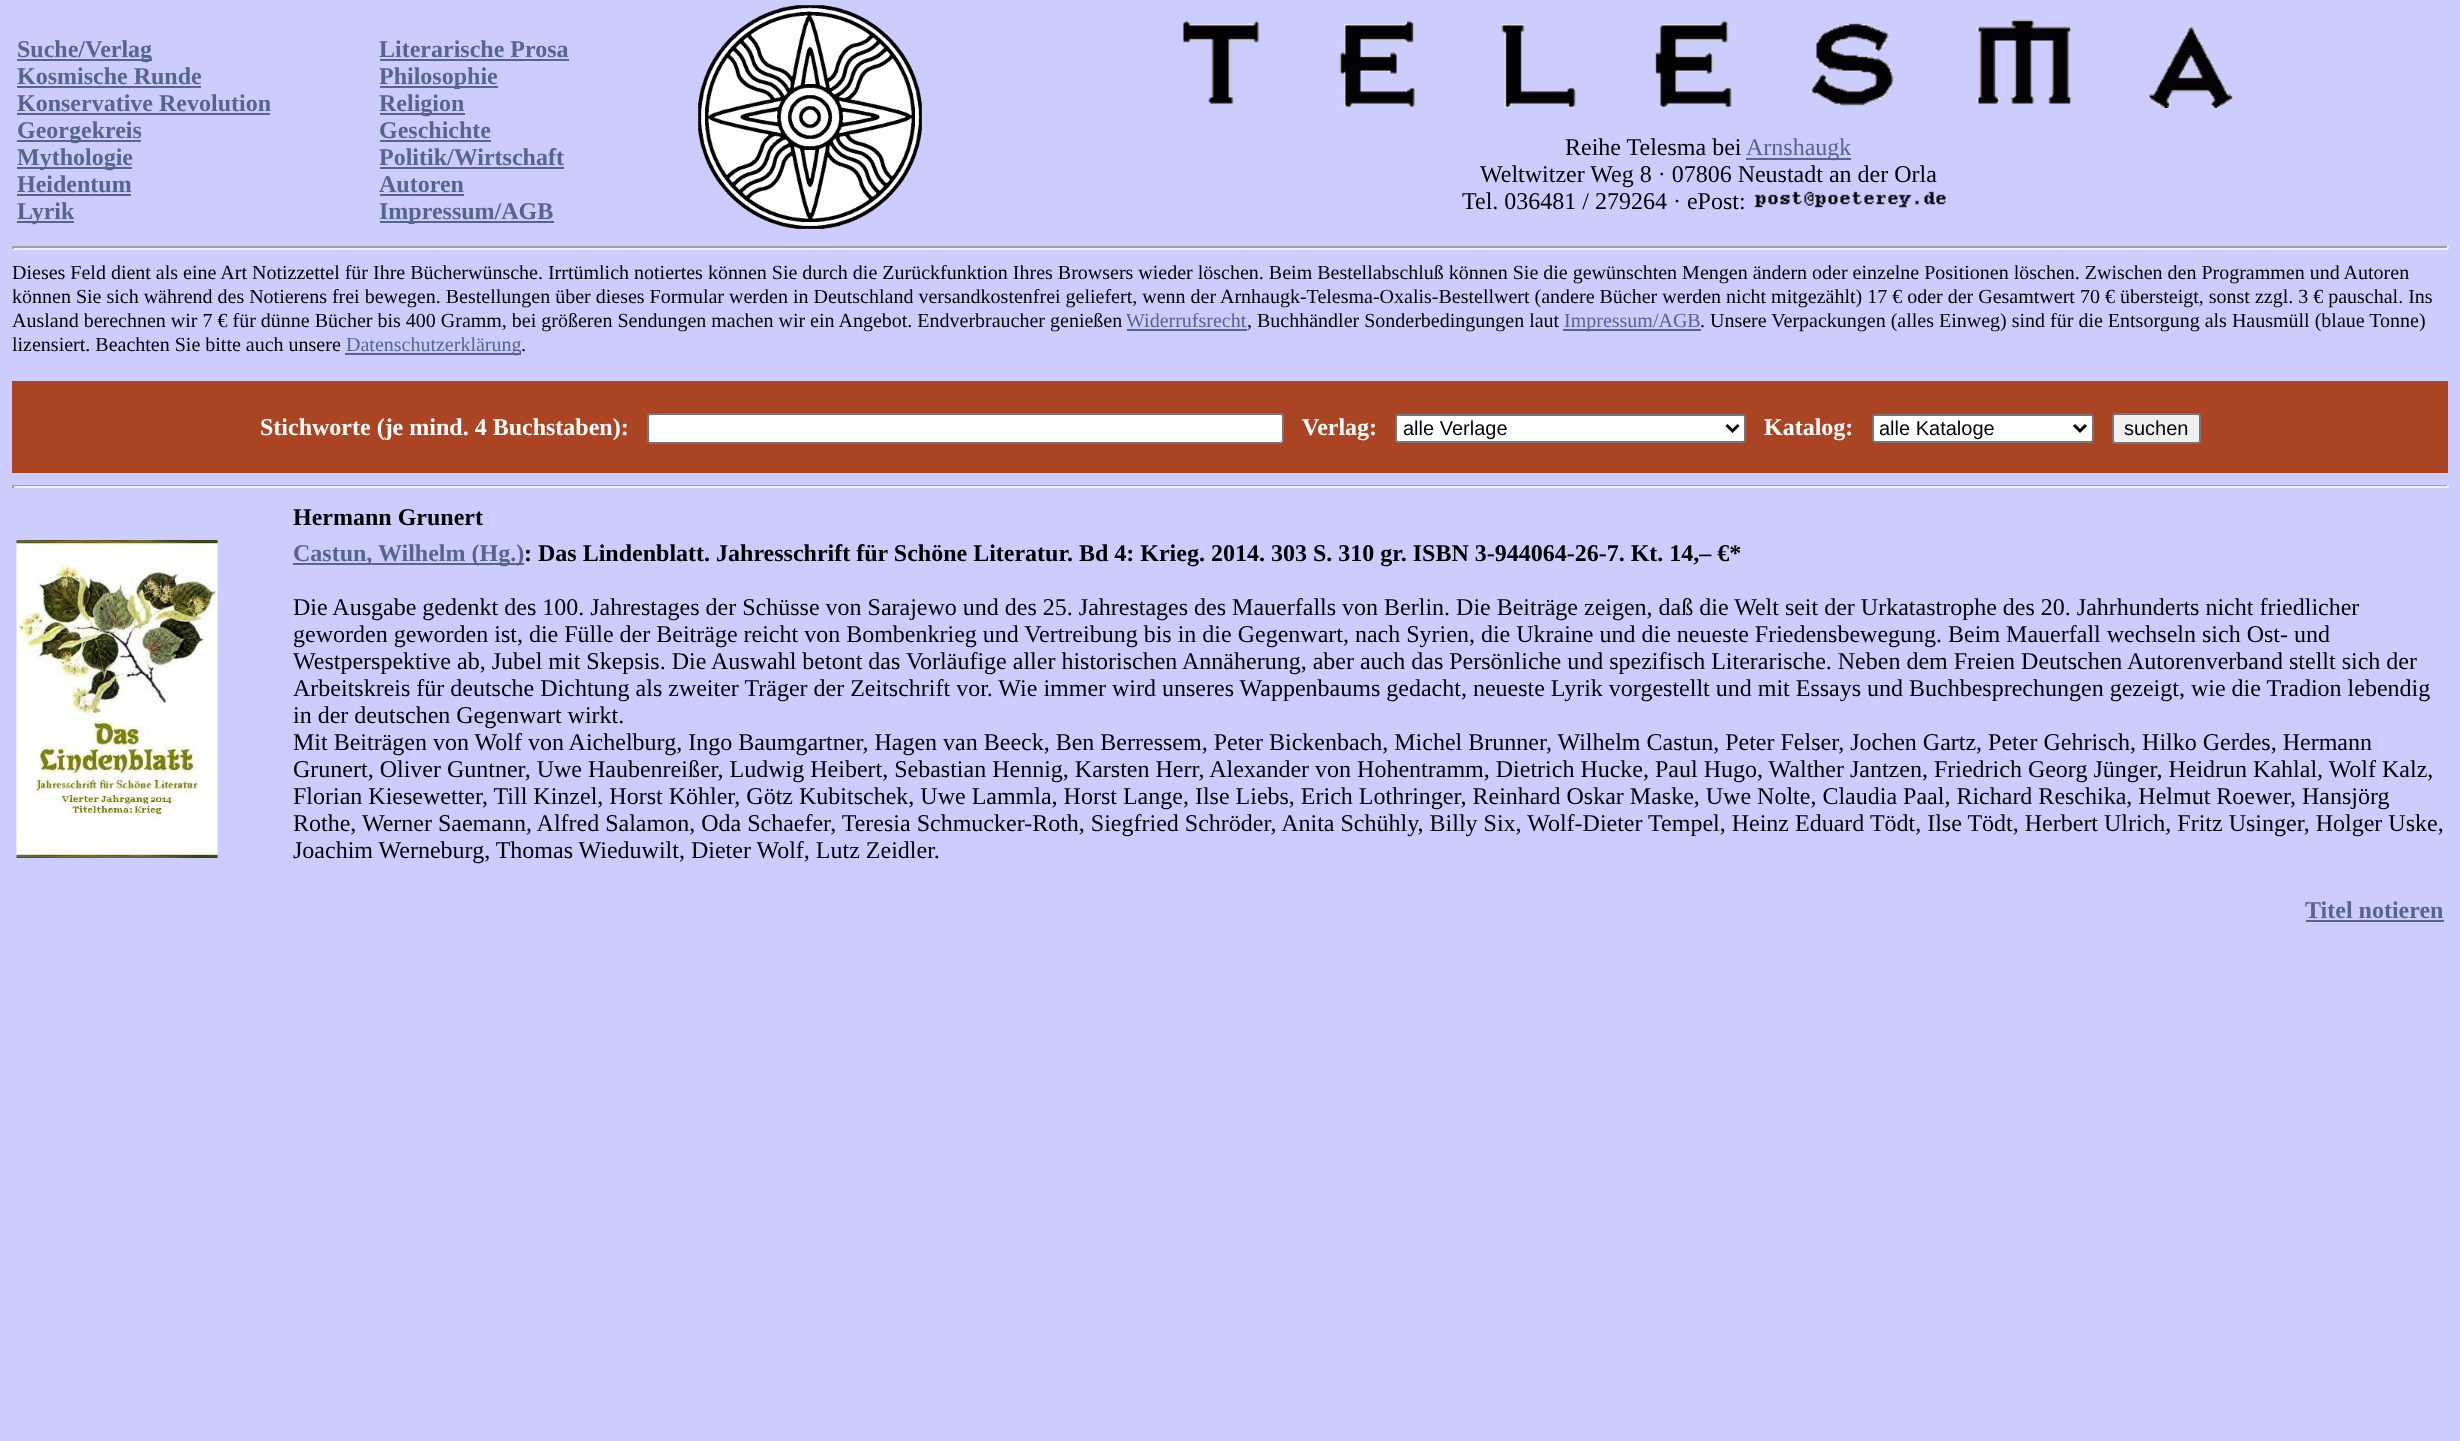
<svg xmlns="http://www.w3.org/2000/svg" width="2460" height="1441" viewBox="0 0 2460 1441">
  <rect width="100%" height="100%" fill="#ccf"/>
  <path d="M17 59h135v2H17z" fill="#568"/>
  <path d="M17 86h184v2H17z" fill="#568"/>
  <path d="M17 113h253v2H17z" fill="#568"/>
  <path d="M17 140h124v2H17z" fill="#568"/>
  <path d="M17 167h115v2H17z" fill="#568"/>
  <path d="M17 194h114v2H17z" fill="#568"/>
  <path d="M17 221h57v2H17z" fill="#568"/>
  <path d="M380 59h189v2H380z" fill="#568"/>
  <path d="M380 86h118v2H380z" fill="#568"/>
  <path d="M380 113h85v2H380z" fill="#568"/>
  <path d="M380 140h111v2H380z" fill="#568"/>
  <path d="M380 167h184v2H380z" fill="#568"/>
  <path d="M380 194h84v2H380z" fill="#568"/>
  <path d="M380 221h174v2H380z" fill="#568"/>
  <image x="698" y="5" width="224" height="224" href="img/1.png"/>
  <image x="1183" y="19" width="1051" height="89" href="img/2.png"/>
  <path d="M1746 158h105v2H1746z" fill="#568"/>
  <image x="1754" y="191" width="192" height="17" href="img/3.png"/>
  <path d="M12 246h2436v2H12z" fill="#9f9f9f"/>
  <path d="M2447 246h2v3H2447z" fill="#eee"/>
  <path d="M12 248h2436v2H12z" fill="#eee"/>
  <path d="M12 246h2v3H12z" fill="#9f9f9f"/>
  <path d="M1127 329h120v2H1127z" fill="#568"/>
  <path d="M1563 329h138v2H1563z" fill="#568"/>
  <path d="M345 353h176v2H345z" fill="#568"/>
  <path d="M12 381h2436v92H12z" fill="#a42"/>
  <rect x="648" y="414" width="635" height="29" rx="2" fill="#fff" stroke="#767676" stroke-width="2"/>
  <rect x="1396" y="415" width="349" height="27" rx="2" fill="#fff" stroke="#767676" stroke-width="2"/>
  <path d="M1726.5 425L1732.5 431L1738.5 425" fill="none" stroke="#000" stroke-width="3"/>
  <rect x="1873" y="415" width="220" height="27" rx="2" fill="#fff" stroke="#767676" stroke-width="2"/>
  <path d="M2074 425L2080 431L2086 425" fill="none" stroke="#000" stroke-width="3"/>
  <rect x="2113" y="414" width="87" height="29" rx="2" fill="#efefef" stroke="#767676" stroke-width="2"/>
  <path d="M12 485h2436v1H12z" fill="#9f9f9f"/>
  <path d="M2447 485h2v3H2447z" fill="#eee"/>
  <path d="M12 486h2436v2H12z" fill="#eee"/>
  <path d="M12 485h2v3H12z" fill="#9f9f9f"/>
  <image x="16" y="540" width="202" height="318" href="img/4.png"/>
  <path d="M293 563h231v2H293z" fill="#568"/>
  <path d="M2306 920h138v2H2306z" fill="#568"/>
  <g font-family="Liberation Serif" font-size="24" font-weight="bold" fill="#568">
    <text x="17" y="57">Suche/Verlag</text>
    <text x="17" y="84">Kosmische Runde</text>
    <text x="17" y="111">Konservative Revolution</text>
    <text x="17" y="138">Georgekreis</text>
    <text x="17" y="165">Mythologie</text>
    <text x="17" y="192">Heidentum</text>
    <text x="17" y="219">Lyrik</text>
    <text x="379" y="57">Literarische Prosa</text>
    <text x="379" y="84">Philosophie</text>
    <text x="379" y="111">Religion</text>
    <text x="379" y="138">Geschichte</text>
    <text x="379" y="165">Politik/Wirtschaft</text>
    <text x="379" y="192">Autoren</text>
    <text x="379" y="219">Impressum/AGB</text>
  </g>
  <text x="1565" y="155" font-family="Liberation Serif" font-size="24" fill="#000">Reihe Telesma bei</text>
  <text x="1746" y="155" font-family="Liberation Serif" font-size="24" fill="#568">Arnshaugk</text>
  <g font-family="Liberation Serif" font-size="24" fill="#000">
    <text x="1480" y="182">Weltwitzer Weg 8 · 07806 Neustadt an der Orla</text>
    <text x="1462" y="209">Tel. 036481 / 279264 · ePost:</text>
  </g>
  <g font-family="Liberation Serif" font-size="20" fill="#000">
    <text x="12" y="279">Dieses Feld dient als eine Art Notizzettel für Ihre Bücherwünsche. Irrtümlich notiertes können Sie durch die Zurückfunktion Ihres Browsers wieder löschen. Beim Bestellabschluß können Sie die gewünschten Mengen ändern oder einzelne Positionen löschen. Zwischen den Programmen und Autoren</text>
    <text x="12" y="303">können Sie sich während des Notierens frei bewegen. Bestellungen über dieses Formular werden in Deutschland versandkostenfrei geliefert, wenn der Arnhaugk-Telesma-Oxalis-Bestellwert (andere Bücher werden nicht mitgezählt) 17 € oder der Gesamtwert 70 € übersteigt, sonst zzgl. 3 € pauschal. Ins</text>
    <text x="12" y="327">Ausland berechnen wir 7 € für dünne Bücher bis 400 Gramm, bei größeren Sendungen machen wir ein Angebot. Endverbraucher genießen</text>
  </g>
  <text x="1126" y="327" font-family="Liberation Serif" font-size="20" fill="#568">Widerrufsrecht</text>
  <text x="1247" y="327" font-family="Liberation Serif" font-size="20" fill="#000">, Buchhändler Sonderbedingungen laut</text>
  <text x="1564" y="327" font-family="Liberation Serif" font-size="20" fill="#568">Impressum/AGB</text>
  <g font-family="Liberation Serif" font-size="20" fill="#000">
    <text x="1700" y="327">. Unsere Verpackungen (alles Einweg) sind für die Entsorgung als Hausmüll (blaue Tonne)</text>
    <text x="12" y="351">lizensiert. Beachten Sie bitte auch unsere</text>
  </g>
  <text x="346" y="351" font-family="Liberation Serif" font-size="20" fill="#568">Datenschutzerklärung</text>
  <text x="521" y="351" font-family="Liberation Serif" font-size="20" fill="#000">.</text>
  <g font-family="Liberation Serif" font-size="24" font-weight="bold" fill="#fff">
    <text x="260" y="435">Stichworte (je mind. 4 Buchstaben):</text>
    <text x="1302" y="435">Verlag:</text>
  </g>
  <text x="1403" y="435" font-family="Liberation Sans" font-size="20" fill="#000">alle Verlage</text>
  <text x="1764" y="435" font-family="Liberation Serif" font-size="24" font-weight="bold" fill="#fff">Katalog:</text>
  <g font-family="Liberation Sans" font-size="20" fill="#000">
    <text x="1879" y="435">alle Kataloge</text>
    <text x="2124" y="435">suchen</text>
  </g>
  <text x="293" y="525" font-family="Liberation Serif" font-size="24" font-weight="bold" fill="#000">Hermann Grunert</text>
  <text x="293" y="561" font-family="Liberation Serif" font-size="24" font-weight="bold" fill="#568">Castun, Wilhelm (Hg.)</text>
  <text x="524" y="561" font-family="Liberation Serif" font-size="24" font-weight="bold" fill="#000">: Das Lindenblatt. Jahresschrift für Schöne Literatur. Bd 4: Krieg. 2014. 303 S. 310 gr. ISBN 3-944064-26-7. Kt. 14,– €*</text>
  <g font-family="Liberation Serif" font-size="24" fill="#000">
    <text x="293" y="615">Die Ausgabe gedenkt des 100. Jahrestages der Schüsse von Sarajewo und des 25. Jahrestages des Mauerfalls von Berlin. Die Beiträge zeigen, daß die Welt seit der Urkatastrophe des 20. Jahrhunderts nicht friedlicher</text>
    <text x="293" y="642">geworden geworden ist, die Fülle der Beiträge reicht von Bombenkrieg und Vertreibung bis in die Gegenwart, nach Syrien, die Ukraine und die neueste Friedensbewegung. Beim Mauerfall wechseln sich Ost- und</text>
    <text x="293" y="669">Westperspektive ab, Jubel mit Skepsis. Die Auswahl betont das Vorläufige aller historischen Annäherung, aber auch das Persönliche und spezifisch Literarische. Neben dem Freien Deutschen Autorenverband stellt sich der</text>
    <text x="293" y="696">Arbeitskreis für deutsche Dichtung als zweiter Träger der Zeitschrift vor. Wie immer wird unseres Wappenbaums gedacht, neueste Lyrik vorgestellt und mit Essays und Buchbesprechungen gezeigt, wie die Tradion lebendig</text>
    <text x="293" y="723">in der deutschen Gegenwart wirkt.</text>
    <text x="293" y="750">Mit Beiträgen von Wolf von Aichelburg, Ingo Baumgartner, Hagen van Beeck, Ben Berressem, Peter Bickenbach, Michel Brunner, Wilhelm Castun, Peter Felser, Jochen Gartz, Peter Gehrisch, Hilko Gerdes, Hermann</text>
    <text x="293" y="777">Grunert, Oliver Guntner, Uwe Haubenreißer, Ludwig Heibert, Sebastian Hennig, Karsten Herr, Alexander von Hohentramm, Dietrich Hucke, Paul Hugo, Walther Jantzen, Friedrich Georg Jünger, Heidrun Kahlal, Wolf Kalz,</text>
    <text x="293" y="804">Florian Kiesewetter, Till Kinzel, Horst Köhler, Götz Kubitschek, Uwe Lammla, Horst Lange, Ilse Liebs, Erich Lothringer, Reinhard Oskar Maske, Uwe Nolte, Claudia Paal, Richard Reschika, Helmut Roewer, Hansjörg</text>
    <text x="293" y="831">Rothe, Werner Saemann, Alfred Salamon, Oda Schaefer, Teresia Schmucker-Roth, Siegfried Schröder, Anita Schühly, Billy Six, Wolf-Dieter Tempel, Heinz Eduard Tödt, Ilse Tödt, Herbert Ulrich, Fritz Usinger, Holger Uske,</text>
    <text x="293" y="858">Joachim Werneburg, Thomas Wieduwilt, Dieter Wolf, Lutz Zeidler.</text>
  </g>
  <text x="2305" y="918" font-family="Liberation Serif" font-size="24" font-weight="bold" fill="#568">Titel notieren</text>
</svg>
